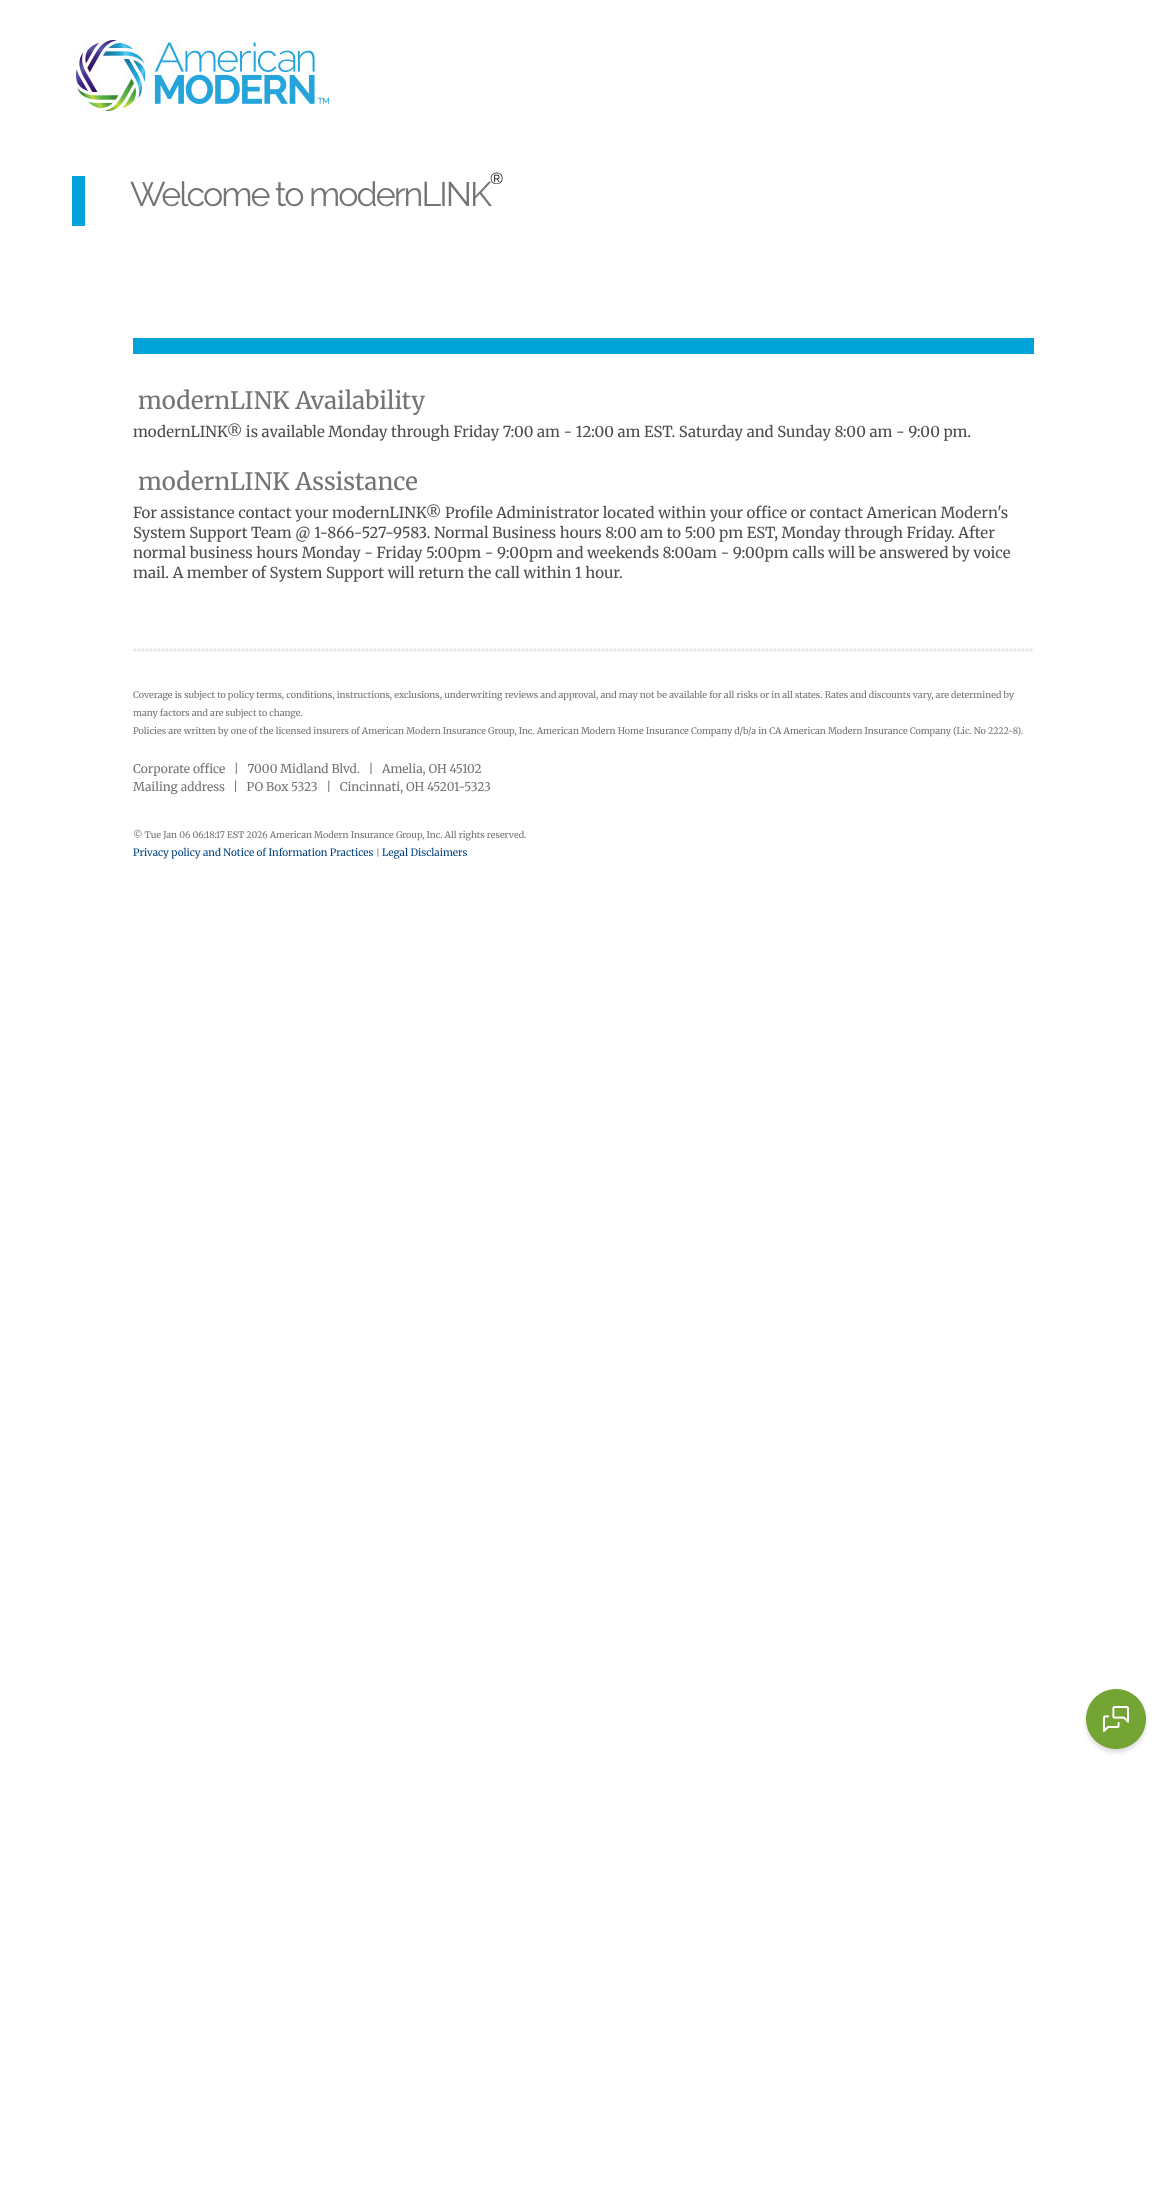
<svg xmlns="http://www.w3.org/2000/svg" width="1167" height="2199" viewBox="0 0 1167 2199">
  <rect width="100%" height="100%" fill="#fff"/>
  <image x="76" y="40" width="253" height="71" href="img/1.png"/>
  <path d="M72 176h13v50H72z" fill="#00a2d7"/>
  <image x="1083" y="1689" width="66" height="66" href="img/2.png"/>
  <path d="M133 338h901v16H133z" fill="#01a2d8"/>
  <image x="133" y="648" width="901" height="4" href="img/3.png"/>
  <text x="490" y="184" font-family="Raleway" font-size="16" font-weight="100" fill="#000">®</text>
  <text x="130" y="206" font-family="Raleway" font-size="34" font-weight="100" letter-spacing="-2" fill="#747474">Welcome to modernLINK</text>
  <text x="138" y="409" font-family="Merriweather" font-size="24" font-weight="300" fill="#747474">modernLINK Availability</text>
  <text x="133" y="437" font-family="Merriweather" font-size="15" font-weight="300" fill="#4d4d4d">modernLINK® is available Monday through Friday 7:00 am - 12:00 am EST. Saturday and Sunday 8:00 am - 9:00 pm.</text>
  <text x="138" y="490" font-family="Merriweather" font-size="24" font-weight="300" fill="#747474">modernLINK Assistance</text>
  <g font-family="Merriweather" font-size="15" font-weight="300" fill="#4d4d4d">
    <text x="133" y="518">For assistance contact your modernLINK® Profile Administrator located within your office or contact American Modern's</text>
    <text x="133" y="538">System Support Team @ 1-866-527-9583. Normal Business hours 8:00 am to 5:00 pm EST, Monday through Friday. After</text>
    <text x="133" y="558">normal business hours Monday - Friday 5:00pm - 9:00pm and weekends 8:00am - 9:00pm calls will be answered by voice</text>
    <text x="133" y="578">mail. A member of System Support will return the call within 1 hour.</text>
  </g>
  <g font-family="Merriweather" font-size="9" font-weight="300" fill="#747474">
    <text x="133" y="698">Coverage is subject to policy terms, conditions, instructions, exclusions, underwriting reviews and approval, and may not be available for all risks or in all states. Rates and discounts vary, are determined by</text>
    <text x="133" y="716">many factors and are subject to change.</text>
    <text x="133" y="734">Policies are written by one of the licensed insurers of American Modern Insurance Group, Inc. American Modern Home Insurance Company d/b/a in CA American Modern Insurance Company (Lic. No 2222-8).</text>
  </g>
  <g font-family="Merriweather" font-size="12" font-weight="300" fill="#747474">
    <text x="133" y="773" xml:space="preserve">Corporate office   |   7000 Midland Blvd.   |   Amelia, OH 45102</text>
    <text x="133" y="791">Mailing address</text>
    <text x="233" y="791" xml:space="preserve">|   PO Box 5323   |   Cincinnati, OH 45201-5323</text>
  </g>
  <text x="133" y="838" font-family="Merriweather" font-size="9" font-weight="300" fill="#747474">© Tue Jan 06 06:18:17 EST 2026 American Modern Insurance Group, Inc. All rights reserved.</text>
  <text x="133" y="856" font-family="Merriweather" font-size="10" font-weight="300" fill="#00447e">Privacy policy and Notice of Information Practices</text>
  <text x="376" y="856" font-family="Merriweather" font-size="9" font-weight="300" fill="#747474">|</text>
  <text x="382" y="856" font-family="Merriweather" font-size="10" font-weight="300" fill="#00447e">Legal Disclaimers</text>
</svg>
